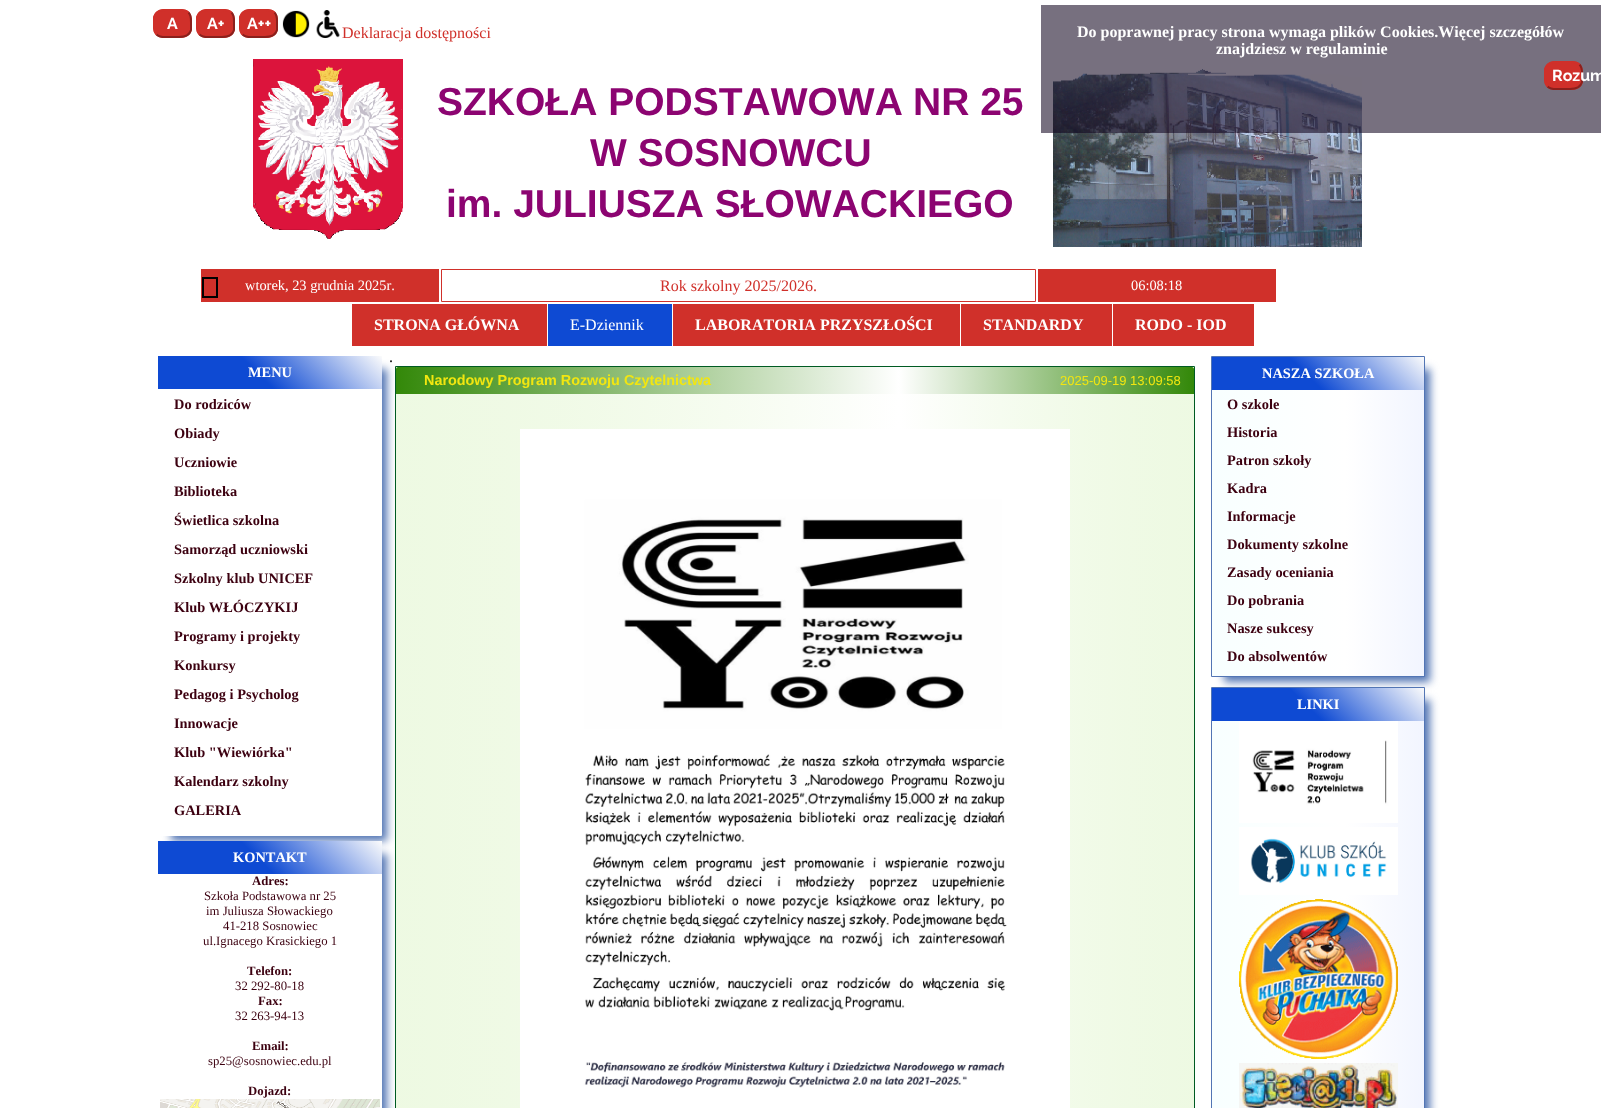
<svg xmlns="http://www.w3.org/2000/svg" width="1606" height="1108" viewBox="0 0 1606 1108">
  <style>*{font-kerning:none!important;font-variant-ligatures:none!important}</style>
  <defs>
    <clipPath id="clip1"><path d="M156 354H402V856H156ZM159 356H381C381.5 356 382 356.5 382 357V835C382 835.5 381.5 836 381 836H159C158.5 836 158 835.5 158 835V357C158 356.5 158.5 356 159 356Z" clip-rule="evenodd"/></clipPath>
    <linearGradient id="g1" gradientUnits="userSpaceOnUse" x1="206" y1="437" x2="334" y2="308"><stop offset="0.18" stop-color="#0e4ad3"/><stop offset="0.45" stop-color="#0e4ad3"/><stop offset="1" stop-color="#fcfcfc"/></linearGradient>
    <clipPath id="clip2"><path d="M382 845h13v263H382z"/></clipPath>
    <linearGradient id="g2" gradientUnits="userSpaceOnUse" x1="206" y1="922" x2="334" y2="793"><stop offset="0.18" stop-color="#0e4ad3"/><stop offset="0.45" stop-color="#0e4ad3"/><stop offset="1" stop-color="#fcfcfc"/></linearGradient>
    <linearGradient id="g3" gradientUnits="userSpaceOnUse" x1="396" y1="822" x2="1194" y2="822"><stop offset="0" stop-color="#e0f5cc" stop-opacity="0.56"/><stop offset="0.63" stop-color="#fff"/><stop offset="1" stop-color="#e0f5cc" stop-opacity="0.56"/></linearGradient>
    <linearGradient id="g4" gradientUnits="userSpaceOnUse" x1="396" y1="381" x2="1194" y2="381"><stop offset="0" stop-color="#338809"/><stop offset="0.63" stop-color="#fff"/><stop offset="1" stop-color="#338809"/></linearGradient>
    <linearGradient id="g5" gradientUnits="userSpaceOnUse" x1="1212" y1="517" x2="1424" y2="517"><stop offset="0" stop-color="#f8ffff"/><stop offset="0.63" stop-color="#fff"/><stop offset="1" stop-color="#f2f5ff"/></linearGradient>
    <linearGradient id="g6" gradientUnits="userSpaceOnUse" x1="1257" y1="435" x2="1379" y2="312"><stop offset="0.18" stop-color="#0e4ad3"/><stop offset="0.45" stop-color="#0e4ad3"/><stop offset="1" stop-color="#fcfcfc"/></linearGradient>
    <linearGradient id="g7" gradientUnits="userSpaceOnUse" x1="1212" y1="1003" x2="1424" y2="1003"><stop offset="0" stop-color="#f8ffff"/><stop offset="0.63" stop-color="#fff"/><stop offset="1" stop-color="#f2f5ff"/></linearGradient>
    <linearGradient id="g8" gradientUnits="userSpaceOnUse" x1="1257" y1="766" x2="1379" y2="643"><stop offset="0.18" stop-color="#0e4ad3"/><stop offset="0.45" stop-color="#0e4ad3"/><stop offset="1" stop-color="#fcfcfc"/></linearGradient>
  </defs>
  <rect width="100%" height="100%" fill="#fff"/>
  <rect x="153" y="9" width="39" height="29" rx="10" fill="#d0302a"/>
  <path d="M188.5 12.5C191.5 15.5 191 19.5 191 23.5V30C189.5 36 184.5 37 179 37H169.5C165 37 160 38 156.5 34.5" fill="none" stroke="#8b201c" stroke-width="2"/>
  <path d="M156.5 34.5C153.5 31.5 154 27.5 154 23.5V17C155.5 11 160.5 10 166 10H175.5C180 10 185 9 188.5 12.5" fill="none" stroke="#d0302a" stroke-width="2"/>
  <rect x="196" y="9" width="39" height="29" rx="10" fill="#d0302a"/>
  <path d="M231.5 12.5C234.5 15.5 234 19.5 234 23.5V30C232.5 36 227.5 37 222 37H212.5C208 37 203 38 199.5 34.5" fill="none" stroke="#8b201c" stroke-width="2"/>
  <path d="M199.5 34.5C196.5 31.5 197 27.5 197 23.5V17C198.5 11 203.5 10 209 10H218.5C223 10 228 9 231.5 12.5" fill="none" stroke="#d0302a" stroke-width="2"/>
  <rect x="239" y="9" width="39" height="29" rx="10" fill="#d0302a"/>
  <path d="M274.5 12.5C277.5 15.5 277 19.5 277 23.5V30C275.5 36 270.5 37 265 37H255.5C251 37 246 38 242.5 34.5" fill="none" stroke="#8b201c" stroke-width="2"/>
  <path d="M242.5 34.5C239.5 31.5 240 27.5 240 23.5V17C241.5 11 246.5 10 252 10H261.5C266 10 271 9 274.5 12.5" fill="none" stroke="#d0302a" stroke-width="2"/>
  <image x="282" y="10" width="28" height="28" href="img/1.png"/>
  <image x="316" y="10" width="24" height="28" href="img/2.png"/>
  <image x="253" y="59" width="150" height="180" href="img/3.png"/>
  <image x="1053" y="69" width="309" height="178" href="img/4.png"/>
  <path d="M201 269h238v33H201z" fill="#d0302a"/>
  <path d="M203 278h14v19H203z" fill="none" stroke="#000" stroke-width="2"/>
  <path d="M441.5 269.5h594v32H441.5z" fill="none" stroke="#d0302a"/>
  <path d="M1038 269h238v33H1038z" fill="#d0302a"/>
  <path d="M1041 5h560v128H1041z" fill="#0d001a8f"/>
  <rect x="1544" y="61" width="39" height="29" rx="10" fill="#d0302a"/>
  <path d="M1579.5 64.5C1582.5 67.5 1582 71.5 1582 75.5V82C1580.5 88 1575.5 89 1570 89H1560.5C1556 89 1551 90 1547.5 86.5" fill="none" stroke="#8b201c" stroke-width="2"/>
  <path d="M1547.5 86.5C1544.5 83.5 1545 79.5 1545 75.5V69C1546.5 63 1551.5 62 1557 62H1566.5C1571 62 1576 61 1579.5 64.5" fill="none" stroke="#d0302a" stroke-width="2"/>
  <g clip-path="url(#clip1)">
    <path d="M171 369h216v472H171z" fill="#5275b4" filter="blur(4.5px)"/>
  </g>
  <path d="M158 356h224v33H158z" fill="url(#g1)"/>
  <g clip-path="url(#clip2)">
    <path d="M171 854h216v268H171z" fill="#5275b4" filter="blur(4.5px)"/>
  </g>
  <path d="M158 841h224v33H158z" fill="url(#g2)"/>
  <image x="160" y="1099" width="220" height="9" href="img/5.png"/>
  <path d="M396 367h798v741H396z" fill="url(#g3)"/>
  <path d="M395.5 366.5h799v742H395.5z" fill="none" stroke="#005b23"/>
  <path d="M398 367H1192C1193 367 1194 368 1194 369V394H396V369C396 368 397 367 398 367Z" fill="url(#g4)"/>
  <image x="520" y="429" width="550" height="679" href="img/6.png"/>
  <path d="M1224 369h206v313H1224z" fill="#5275b4" filter="blur(4.5px)"/>
  <path d="M1212 390h212v286H1212z" fill="url(#g5)"/>
  <path d="M1211.5 356.5h213v320H1211.5z" fill="none" stroke="#5275b4"/>
  <path d="M1212 357h212v33H1212z" fill="url(#g6)"/>
  <path d="M1224 700h206v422H1224z" fill="#5275b4" filter="blur(4.5px)"/>
  <path d="M1212 721h212v387H1212z" fill="url(#g7)"/>
  <path d="M1211.5 687.5h213v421H1211.5z" fill="none" stroke="#5275b4"/>
  <path d="M1212 688h212v33H1212z" fill="url(#g8)"/>
  <image x="1239" y="721" width="159" height="102" href="img/7.png"/>
  <image x="1239" y="827" width="159" height="68" href="img/8.png"/>
  <image x="1239" y="899" width="159" height="160" href="img/9.png"/>
  <image x="1239" y="1063" width="159" height="45" href="img/10.png"/>
  <path d="M352 304h195v42H352z" fill="#d0302a"/>
  <path d="M548 304h124v42H548z" fill="#0e4ad3"/>
  <path d="M673 304h287v42H673z" fill="#d0302a"/>
  <path d="M961 304h151v42H961z" fill="#d0302a"/>
  <path d="M1113 304h141v42H1113z" fill="#d0302a"/>
  <g font-family="Raleway" font-size="16" font-weight="bold" fill="#fff">
    <text x="167" y="29">A</text>
    <text x="207" y="29">A+</text>
    <text x="247" y="29">A++</text>
  </g>
  <text x="342" y="38" font-family="Liberation Serif" font-size="16" fill="#d0302a">Deklaracja dostępności</text>
  <g font-family="Liberation Sans" font-size="39" font-weight="bold" fill="#8c0471">
    <text x="437" y="115">SZKOŁA PODSTAWOWA</text>
    <text x="913" y="115">NR 25</text>
    <text x="590" y="166">W SOSNOWCU</text>
    <text x="446" y="217">im. JULIUSZA SŁOWACKIEGO</text>
  </g>
  <text x="245" y="290" font-family="Liberation Serif" font-size="14.4" fill="#fff">wtorek, 23 grudnia 2025r.</text>
  <text x="660" y="291" font-family="Liberation Serif" font-size="16" fill="#d0302a">Rok szkolny 2025/2026.</text>
  <text x="1131" y="290" font-family="Liberation Serif" font-size="14.4" fill="#fff">06:08:18</text>
  <g font-family="Liberation Serif" font-size="16" font-weight="bold" fill="#fff">
    <text x="1077" y="37">Do poprawnej pracy strona wymaga plików Cookies.Więcej szczegółów</text>
    <text x="1216" y="54">znajdziesz w regulaminie</text>
  </g>
  <text x="1552" y="81" font-family="Raleway" font-size="16" font-weight="bold" fill="#fff">Rozum</text>
  <text x="248" y="377" font-family="Liberation Serif" font-size="14.4" font-weight="bold" fill="#fff">MENU</text>
  <g font-family="Liberation Serif" font-size="14.4" font-weight="bold" fill="#3c0010">
    <text x="174" y="409">Do rodziców</text>
    <text x="174" y="438">Obiady</text>
    <text x="174" y="467">Uczniowie</text>
    <text x="174" y="496">Biblioteka</text>
    <text x="174" y="525">Świetlica szkolna</text>
    <text x="174" y="554">Samorząd uczniowski</text>
    <text x="174" y="583">Szkolny klub UNICEF</text>
    <text x="174" y="612">Klub WŁÓCZYKIJ</text>
    <text x="174" y="641">Programy i projekty</text>
    <text x="174" y="670">Konkursy</text>
    <text x="174" y="699">Pedagog i Psycholog</text>
    <text x="174" y="728">Innowacje</text>
    <text x="174" y="757">Klub "Wiewiórka"</text>
    <text x="174" y="786">Kalendarz szkolny</text>
    <text x="174" y="815">GALERIA</text>
  </g>
  <text x="233" y="862" font-family="Liberation Serif" font-size="14.4" font-weight="bold" fill="#fff">KONTAKT</text>
  <text x="252" y="885" font-family="Liberation Serif" font-size="12.75" font-weight="bold" fill="#3c0010">Adres:</text>
  <g font-family="Liberation Serif" font-size="12.75" fill="#3c0010">
    <text x="204" y="900">Szkoła Podstawowa nr 25</text>
    <text x="206" y="915">im Juliusza Słowackiego</text>
    <text x="223" y="930">41-218 Sosnowiec</text>
    <text x="203" y="945">ul.Ignacego Krasickiego 1</text>
  </g>
  <text x="247" y="975" font-family="Liberation Serif" font-size="12.75" font-weight="bold" fill="#3c0010">Telefon:</text>
  <text x="235" y="990" font-family="Liberation Serif" font-size="12.75" fill="#3c0010">32 292-80-18</text>
  <text x="258" y="1005" font-family="Liberation Serif" font-size="12.75" font-weight="bold" fill="#3c0010">Fax:</text>
  <text x="235" y="1020" font-family="Liberation Serif" font-size="12.75" fill="#3c0010">32 263-94-13</text>
  <text x="252" y="1050" font-family="Liberation Serif" font-size="12.75" font-weight="bold" fill="#3c0010">Email:</text>
  <text x="208" y="1065" font-family="Liberation Serif" font-size="12.75" fill="#3c0010">sp25@sosnowiec.edu.pl</text>
  <text x="248" y="1095" font-family="Liberation Serif" font-size="12.75" font-weight="bold" fill="#3c0010">Dojazd:</text>
  <text x="389" y="362" font-family="Liberation Serif" font-size="16" fill="#000">.</text>
  <text x="424" y="385" font-family="Liberation Sans" font-size="14.4" font-weight="bold" fill="#f2e610">Narodowy Program Rozwoju Czytelnictwa</text>
  <text x="1060" y="385" font-family="Liberation Sans" font-size="13" fill="#f2e610">2025-09-19 13:09:58</text>
  <text x="1262" y="378" font-family="Liberation Serif" font-size="14.4" font-weight="bold" fill="#fff">NASZA SZKOŁA</text>
  <g font-family="Liberation Serif" font-size="14.4" font-weight="bold" fill="#3c0010">
    <text x="1227" y="409">O szkole</text>
    <text x="1227" y="437">Historia</text>
    <text x="1227" y="465">Patron szkoły</text>
    <text x="1227" y="493">Kadra</text>
    <text x="1227" y="521">Informacje</text>
    <text x="1227" y="549">Dokumenty szkolne</text>
    <text x="1227" y="577">Zasady oceniania</text>
    <text x="1227" y="605">Do pobrania</text>
    <text x="1227" y="633">Nasze sukcesy</text>
    <text x="1227" y="661">Do absolwentów</text>
  </g>
  <text x="1297" y="709" font-family="Liberation Serif" font-size="14.4" font-weight="bold" fill="#fff">LINKI</text>
  <text x="374" y="330" font-family="Liberation Serif" font-size="16" font-weight="bold" fill="#fff">STRONA GŁÓWNA</text>
  <text x="570" y="330" font-family="Liberation Serif" font-size="16" fill="#fff">E-Dziennik</text>
  <g font-family="Liberation Serif" font-size="16" font-weight="bold" fill="#fff">
    <text x="695" y="330">LABORATORIA PRZYSZŁOŚCI</text>
    <text x="983" y="330">STANDARDY</text>
    <text x="1135" y="330">RODO - IOD</text>
  </g>
</svg>
